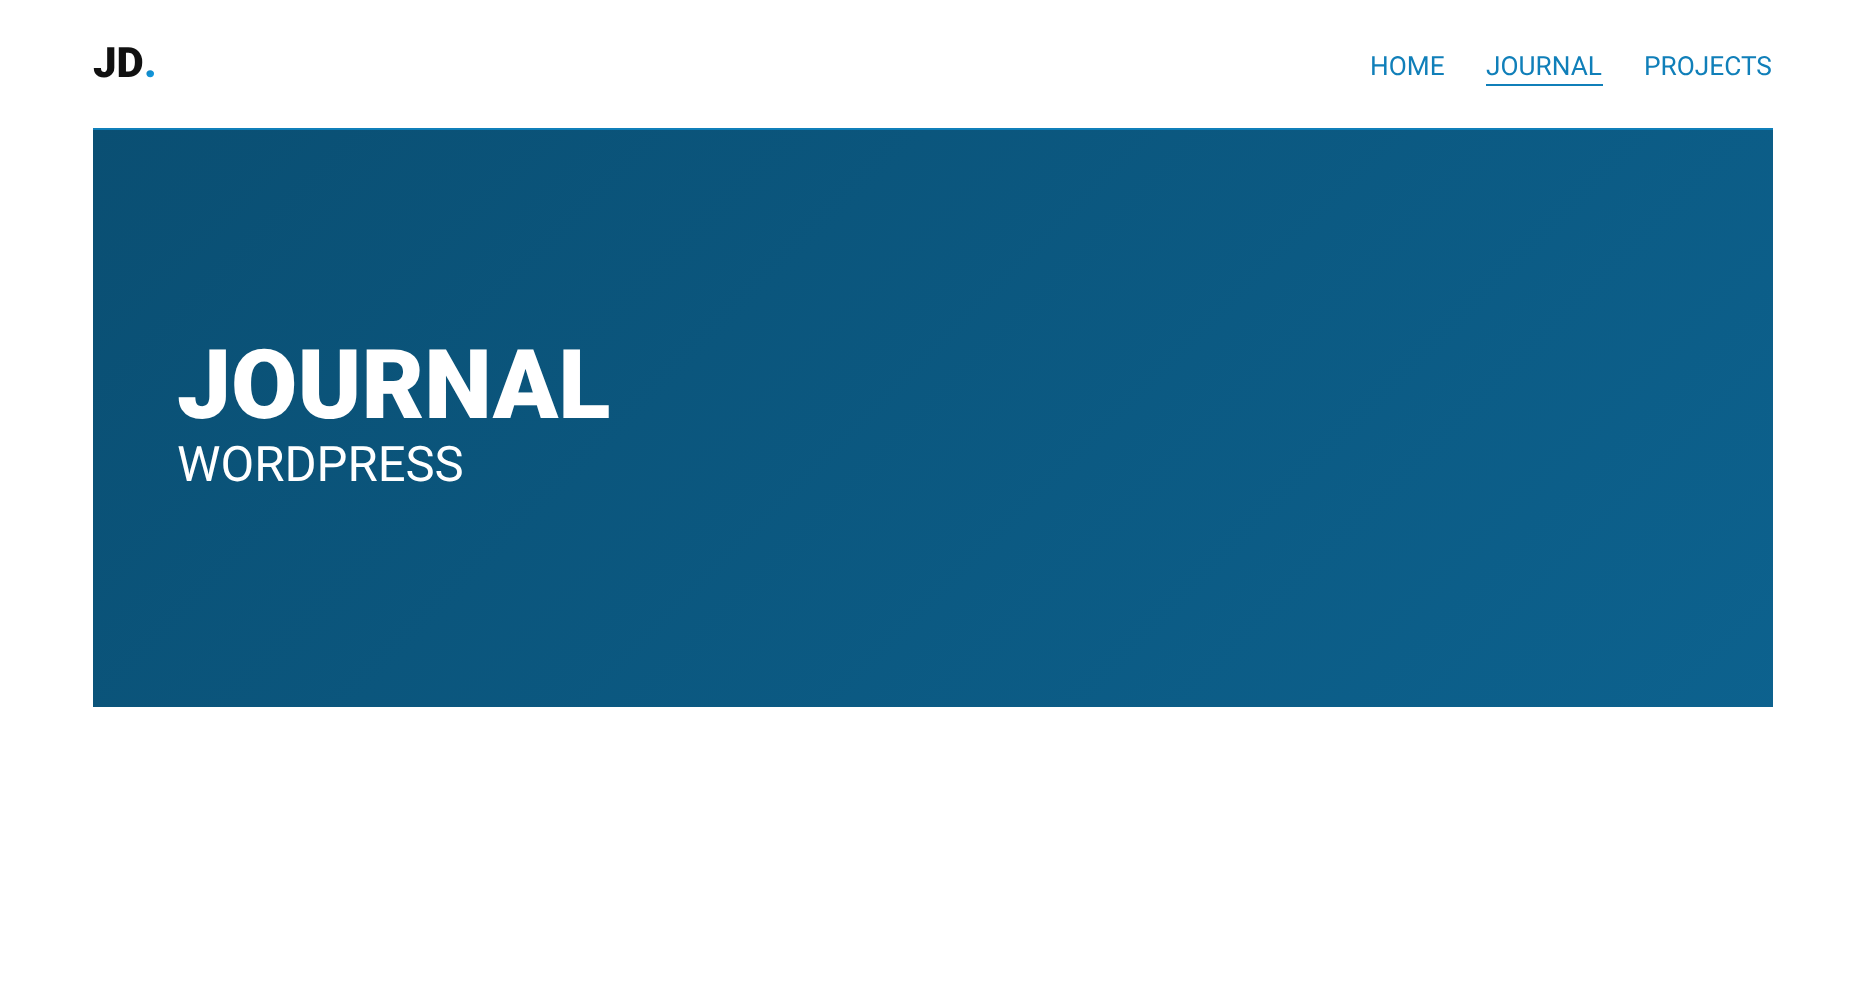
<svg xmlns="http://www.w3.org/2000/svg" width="1865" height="1003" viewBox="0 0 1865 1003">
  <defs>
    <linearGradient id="g1" gradientUnits="userSpaceOnUse" x1="165" y1="78" x2="136" y2="50"><stop offset="0" stop-color="#40b3ef"/><stop offset="0.25" stop-color="#1399df"/><stop offset="0.5" stop-color="#107fb9"/><stop offset="0.75" stop-color="#0d6593"/><stop offset="1" stop-color="#0a4f73"/></linearGradient>
    <linearGradient id="g2" gradientUnits="userSpaceOnUse" x1="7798" y1="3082" x2="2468" y2="-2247"><stop offset="0" stop-color="#40b3ef"/><stop offset="0.25" stop-color="#1399df"/><stop offset="0.5" stop-color="#107fb9"/><stop offset="0.75" stop-color="#0d6593"/><stop offset="1" stop-color="#0a4f73"/></linearGradient>
  </defs>
  <rect width="100%" height="100%" fill="#fff"/>
  <path d="M93 128h1680v2H93z" fill="#107fb9"/>
  <path d="M1486 84h117v2H1486z" fill="#107fb9"/>
  <path d="M93 130h1680v577H93z" fill="url(#g2)"/>
  <text x="93" y="77" font-family="Roboto" font-size="42" font-weight="900" fill="#111">JD</text>
  <text x="144" y="77" font-family="Roboto" font-size="42" font-weight="900" fill="url(#g1)">.</text>
  <g font-family="Roboto" font-size="26.25" fill="#107fb9">
    <text x="1370" y="75">HOME</text>
    <text x="1486" y="75">JOURNAL</text>
    <text x="1644" y="75">PROJECTS</text>
  </g>
  <text x="177" y="418" font-family="Roboto" font-size="96.25" font-weight="900" fill="#fff">JOURNAL</text>
  <text x="177" y="481" font-family="Roboto" font-size="49" fill="#fff">WORDPRESS</text>
</svg>
